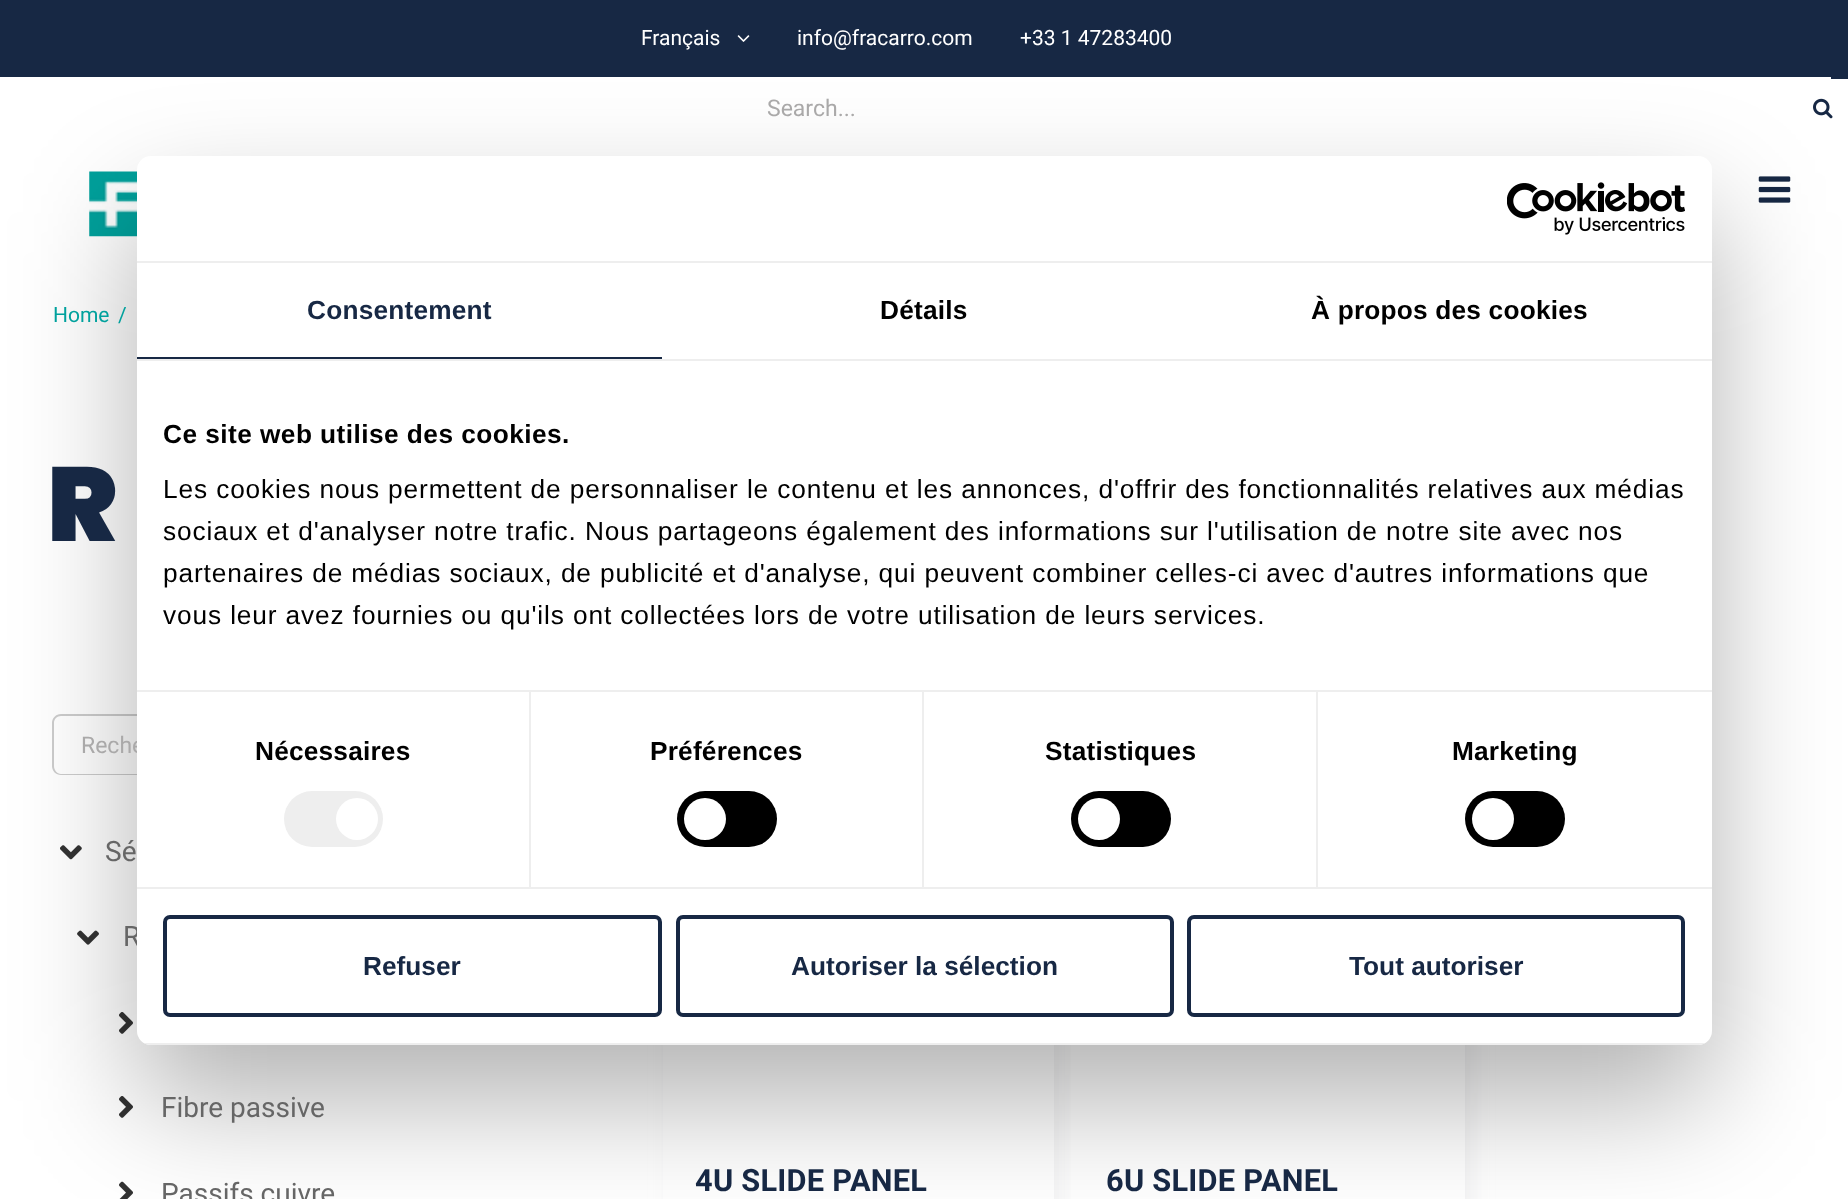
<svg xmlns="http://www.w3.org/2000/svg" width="1848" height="1199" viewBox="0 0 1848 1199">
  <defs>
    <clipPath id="clip1"><rect x="137" y="156" width="1575" height="889" rx="14"/></clipPath>
  </defs>
  <rect width="100%" height="100%" fill="#fff"/>
  <path d="M0 0h1848v79H0z" fill="#172844"/>
  <path d="M0 77h1831v2H0z" fill="#fff"/>
  <image x="737" y="35" width="13" height="7" href="img/1.png"/>
  <image x="1813" y="98" width="20" height="21" href="img/2.png"/>
  <image x="89" y="171" width="48" height="66" href="img/3.png"/>
  <image x="1758" y="176" width="33" height="27" href="img/4.png"/>
  <path d="M61 714H542V775H61C56 775 52 771 52 766V723C52 718 56 714 61 714ZM61 716H542V774H61C57 774 54 770 54 766V723C54 719 57 716 61 716Z" fill="#ccc" fill-rule="evenodd"/>
  <image x="60" y="845" width="22" height="15" href="img/5.png"/>
  <image x="77" y="930" width="22" height="15" href="img/6.png"/>
  <image x="119" y="1012" width="14" height="22" href="img/7.png"/>
  <image x="119" y="1096" width="14" height="22" href="img/7.png"/>
  <image x="119" y="1181" width="14" height="18" href="img/8.png"/>
  <path d="M669 721h393v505H669z" fill="#f4f4f5" filter="blur(9px)"/>
  <path d="M663 1045h391v154H663z" fill="#fff"/>
  <path d="M1080 721h394v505H1080z" fill="#f4f4f5" filter="blur(9px)"/>
  <path d="M1071 1045h394v154H1071z" fill="#fff"/>
  <rect x="137" y="212" width="1575" height="889" rx="14" fill="#0000004d" filter="blur(59.5px)"/>
  <g font-family="Roboto" font-size="21" fill="#fff">
    <text x="641" y="45">Français</text>
    <text x="797" y="45">info@fracarro.com</text>
    <text x="1020" y="45">+33 1 47283400</text>
  </g>
  <text x="767" y="116" font-family="Roboto" font-size="23" fill="#aaa9a9">Search...</text>
  <g font-family="Roboto" font-size="21" fill="#00a19d">
    <text x="53" y="322">Home</text>
    <text x="118" y="322">/</text>
  </g>
  <text x="47" y="541" font-family="Poppins" font-size="105" font-weight="900" fill="#172844">R</text>
  <text x="81" y="753" font-family="Roboto" font-size="23" fill="#aaa9a9">Reche</text>
  <g font-family="Roboto" font-size="28" fill="#666">
    <text x="105" y="861">Sé</text>
    <text x="123" y="946">R</text>
    <text x="161" y="1117">Fibre passive</text>
    <text x="161" y="1203">Passifs cuivre</text>
  </g>
  <g font-family="Roboto" font-size="30.75" font-weight="bold" letter-spacing="0.25" fill="#172844">
    <text x="695" y="1191">4U SLIDE PANEL</text>
    <text x="1106" y="1191">6U SLIDE PANEL</text>
  </g>
  <rect x="137" y="156" width="1575" height="889" rx="14" fill="#fff"/>
  <path d="M137 261h1575v2H137z" fill="#eee"/>
  <image x="1507" y="182" width="178" height="53" href="img/9.png"/>
  <path d="M137 359h1575v2H137z" fill="#eee"/>
  <path d="M137 357h525v2H137z" fill="#172844"/>
  <text x="307" y="319" font-family="Liberation Sans" font-size="26.25" font-weight="bold" letter-spacing="0.2" fill="#172844">Consentement</text>
  <g font-family="Liberation Sans" font-size="26.25" font-weight="bold" letter-spacing="0.2" fill="#000">
    <text x="880" y="319">Détails</text>
    <text x="1311" y="319">À propos des cookies</text>
  </g>
  <text x="163" y="443" font-family="Liberation Sans" font-size="26.25" font-weight="bold" letter-spacing="0.45" fill="#000">Ce site web utilise des cookies.</text>
  <g font-family="Liberation Sans" font-size="26.25" letter-spacing="0.88" fill="#000">
    <text x="163" y="498">Les cookies nous permettent de personnaliser le contenu et les annonces, d'offrir des fonctionnalités relatives aux médias</text>
    <text x="163" y="540">sociaux et d'analyser notre trafic. Nous partageons également des informations sur l'utilisation de notre site avec nos</text>
    <text x="163" y="582">partenaires de médias sociaux, de publicité et d'analyse, qui peuvent combiner celles-ci avec d'autres informations que</text>
    <text x="163" y="624">vous leur avez fournies ou qu'ils ont collectées lors de votre utilisation de leurs services.</text>
  </g>
  <path d="M137 887h1575v2H137z" fill="#eee"/>
  <path d="M529 691h2v196H529z" fill="#eee"/>
  <text x="255" y="760" font-family="Liberation Sans" font-size="26.25" font-weight="bold" letter-spacing="0.2" fill="#000">Nécessaires</text>
  <rect x="284" y="791" width="99" height="56" rx="28" fill="#eee"/>
  <circle cx="357" cy="819" r="21" fill="#fff"/>
  <path d="M922 691h2v196H922z" fill="#eee"/>
  <text x="650" y="760" font-family="Liberation Sans" font-size="26.25" font-weight="bold" letter-spacing="0.2" fill="#000">Préférences</text>
  <rect x="677" y="791" width="100" height="56" rx="28" fill="#000"/>
  <circle cx="705" cy="819" r="21" fill="#fff"/>
  <path d="M1316 691h2v196H1316z" fill="#eee"/>
  <path d="M137 690h1575v2H137z" fill="#eee"/>
  <text x="1045" y="760" font-family="Liberation Sans" font-size="26.25" font-weight="bold" letter-spacing="0.2" fill="#000">Statistiques</text>
  <rect x="1071" y="791" width="100" height="56" rx="28" fill="#000"/>
  <circle cx="1099" cy="819" r="21" fill="#fff"/>
  <text x="1452" y="760" font-family="Liberation Sans" font-size="26.25" font-weight="bold" letter-spacing="0.2" fill="#000">Marketing</text>
  <rect x="1465" y="791" width="100" height="56" rx="28" fill="#000"/>
  <circle cx="1493" cy="819" r="21" fill="#fff"/>
  <g clip-path="url(#clip1)">
    <path d="M137 1043h1575v2H137z" fill="#eee"/>
  </g>
  <rect x="165" y="917" width="495" height="98" rx="5" fill="none" stroke="#172844" stroke-width="4"/>
  <text x="363" y="975" font-family="Liberation Sans" font-size="26.25" font-weight="bold" fill="#172844">Refuser</text>
  <rect x="678" y="917" width="494" height="98" rx="5" fill="none" stroke="#172844" stroke-width="4"/>
  <text x="791" y="975" font-family="Liberation Sans" font-size="26.25" font-weight="bold" fill="#172844">Autoriser la sélection</text>
  <rect x="1189" y="917" width="494" height="98" rx="5" fill="none" stroke="#172844" stroke-width="4"/>
  <text x="1349" y="975" font-family="Liberation Sans" font-size="26.25" font-weight="bold" fill="#172844">Tout autoriser</text>
</svg>
